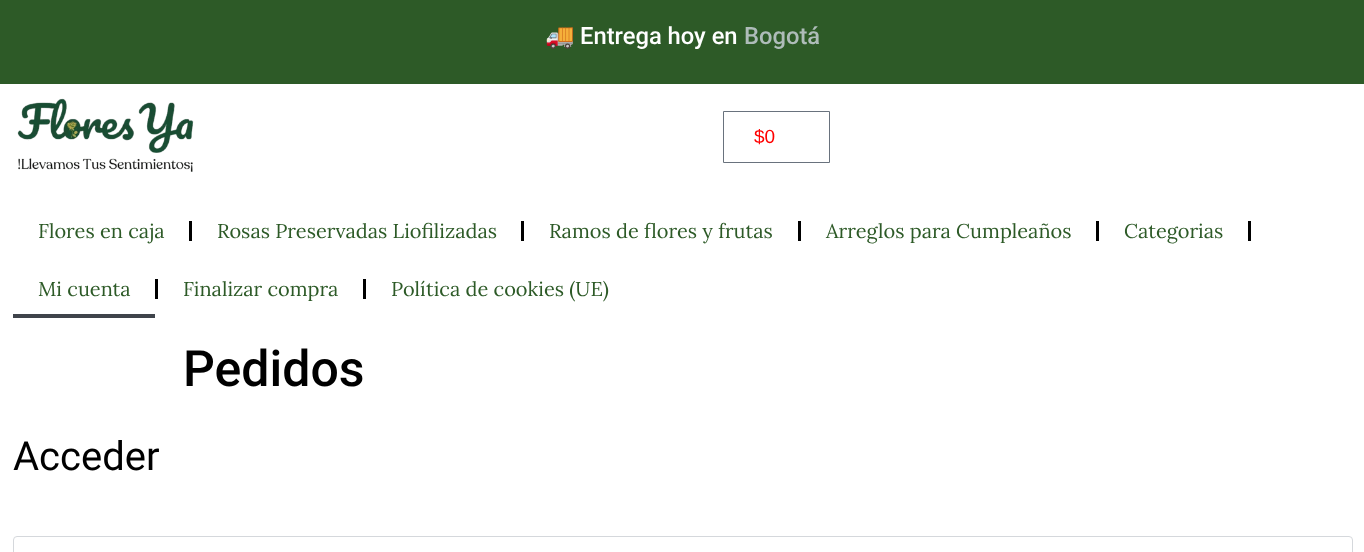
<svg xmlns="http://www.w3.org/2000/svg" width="1364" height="552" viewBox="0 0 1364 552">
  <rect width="100%" height="100%" fill="#fff"/>
  <path d="M0 0h1364v84H0z" fill="#2d5a27"/>
  <image x="17" y="98" width="177" height="74" href="img/1.png"/>
  <path d="M723.5 111.5h106v51H723.5z" fill="none" stroke="#69727d"/>
  <path d="M189 221h3v20H189z" fill="#000"/>
  <path d="M521 221h3v20H521z" fill="#000"/>
  <path d="M798 221h3v20H798z" fill="#000"/>
  <path d="M1096 221h3v20H1096z" fill="#000"/>
  <path d="M1248 221h3v20H1248z" fill="#000"/>
  <path d="M13 314h142v4H13z" fill="#3f444b"/>
  <path d="M155 279h3v20H155z" fill="#000"/>
  <path d="M363 279h3v20H363z" fill="#000"/>
  <rect x="13.5" y="536.5" width="1339" height="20" rx="3.5" fill="none" stroke="#d5d8dc"/>
  <text x="545" y="44" font-family="Noto Color Emoji" font-size="23.75" fill="#fff">🚚</text>
  <text x="580" y="44" font-family="Roboto" font-size="23.75" font-weight="500" fill="#fff">Entrega hoy en</text>
  <text x="744" y="44" font-family="Roboto" font-size="23.75" font-weight="500" fill="#aebcb9">Bogotá</text>
  <text x="754" y="143" font-family="Liberation Sans" font-size="19" fill="#f00">$0</text>
  <g font-family="Lora" font-size="20" fill="#2d5a27">
    <text x="38" y="238">Flores en caja</text>
    <text x="217" y="238">Rosas Preservadas Liofilizadas</text>
    <text x="549" y="238">Ramos de flores y frutas</text>
    <text x="826" y="238">Arreglos para Cumpleaños</text>
    <text x="1124" y="238">Categorias</text>
    <text x="38" y="296">Mi cuenta</text>
    <text x="183" y="296">Finalizar compra</text>
    <text x="391" y="296">Política de cookies (UE)</text>
  </g>
  <text x="183" y="386" font-family="Roboto" font-size="50" font-weight="500" fill="#000">Pedidos</text>
  <text x="13" y="470" font-family="Roboto" font-size="40" fill="#000">Acceder</text>
</svg>
